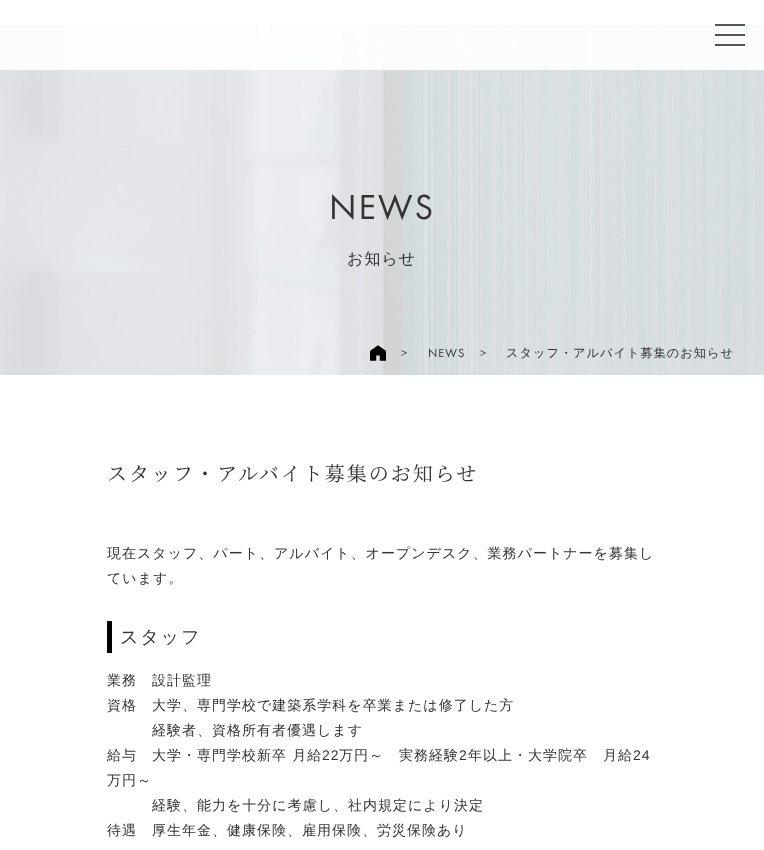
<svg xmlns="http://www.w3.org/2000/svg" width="764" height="850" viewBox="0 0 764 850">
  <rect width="100%" height="100%" fill="#fff"/>
  <image x="0" y="25" width="764" height="350" href="img/1.png"/>
  <path d="M0 25h764v45H0z" fill="#ffffffe6"/>
  <path d="M715 24h30v2H715z" fill="#555"/>
  <path d="M715 34h30v2H715z" fill="#555"/>
  <path d="M715 44h30v2H715z" fill="#555"/>
  <image x="370" y="345" width="16" height="16" href="img/2.png"/>
  <path d="M107 621h5v32H107z" fill="#000"/>
  <text x="329" y="219" font-family="Futura PT" font-size="36" letter-spacing="2" fill="#333">NEWS</text>
  <text x="347" y="264" font-family="WenQuanYi Zen Hei" font-size="16" font-weight="500" letter-spacing="1" fill="#333">お知らせ</text>
  <g font-family="Futura PT" font-size="12.2" letter-spacing="1" fill="#333">
    <text x="401" y="357">&gt;</text>
    <text x="428" y="357">NEWS</text>
    <text x="480" y="357">&gt;</text>
  </g>
  <text x="506" y="357" font-family="WenQuanYi Zen Hei" font-size="12.2" font-weight="500" letter-spacing="1" fill="#333">スタッフ・アルバイト募集のお知らせ</text>
  <text x="107" y="481" font-family="Noto Serif JP" font-size="20" letter-spacing="2" fill="#333">スタッフ・アルバイト募集のお知らせ</text>
  <g font-family="WenQuanYi Zen Hei" font-size="14" font-weight="500" letter-spacing="1" fill="#333">
    <text x="107" y="558">現在スタッフ、パート、アルバイト、オープンデスク、業務パートナーを募集し</text>
    <text x="107" y="583">ています。</text>
  </g>
  <text x="120" y="643" font-family="WenQuanYi Zen Hei" font-size="18" font-weight="500" letter-spacing="2" fill="#333">スタッフ</text>
  <g font-family="WenQuanYi Zen Hei" font-size="14" font-weight="500" letter-spacing="1" fill="#333">
    <text x="107" y="685">業務　設計監理</text>
    <text x="107" y="710">資格　大学、専門学校で建築系学科を卒業または修了した方</text>
    <text x="152" y="735">経験者、資格所有者優遇します</text>
    <text x="107" y="760">給与　大学・専門学校新卒 月給</text>
  </g>
  <text x="322" y="760" font-family="Liberation Sans" font-size="14" letter-spacing="1" fill="#333">22</text>
  <text x="339" y="760" font-family="WenQuanYi Zen Hei" font-size="14" font-weight="500" letter-spacing="1" fill="#333">万円～　実務経験</text>
  <text x="459" y="760" font-family="Liberation Sans" font-size="14" letter-spacing="1" fill="#333">2</text>
  <text x="468" y="760" font-family="WenQuanYi Zen Hei" font-size="14" font-weight="500" letter-spacing="1" fill="#333">年以上・大学院卒　月給</text>
  <text x="633" y="760" font-family="Liberation Sans" font-size="14" letter-spacing="1" fill="#333">24</text>
  <g font-family="WenQuanYi Zen Hei" font-size="14" font-weight="500" letter-spacing="1" fill="#333">
    <text x="107" y="785">万円～</text>
    <text x="152" y="810">経験、能力を十分に考慮し、社内規定により決定</text>
    <text x="107" y="835">待遇　厚生年金、健康保険、雇用保険、労災保険あり</text>
  </g>
</svg>
